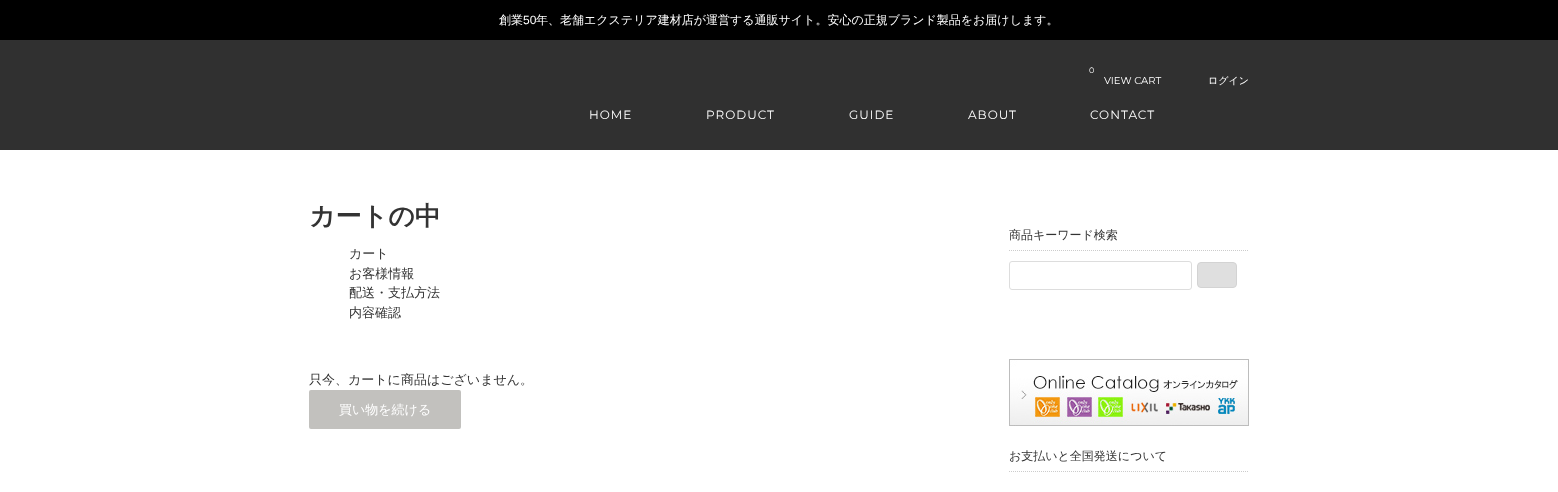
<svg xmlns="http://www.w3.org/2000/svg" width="1558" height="492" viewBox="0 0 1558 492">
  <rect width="100%" height="100%" fill="#fff"/>
  <path d="M0 0h1558v40H0z" fill="#000"/>
  <path d="M0 40h1558v110H0z" fill="#303030"/>
  <rect x="309" y="390" width="152" height="39" rx="2" fill="#c2c1be"/>
  <path d="M1009 250.5H1249" fill="none" stroke="#ccc" stroke-dasharray="1 1"/>
  <rect x="1009.5" y="261.5" width="182" height="28" rx="2.5" fill="none" stroke="#ddd"/>
  <rect x="1197.5" y="262.5" width="39" height="25" rx="3.5" fill="#dfdfdf" stroke="#d3d3d3"/>
  <image x="1009" y="359" width="240" height="67" href="img/1.png"/>
  <path d="M1009 471.5H1249" fill="none" stroke="#ccc" stroke-dasharray="1 1"/>
  <text x="499" y="24" font-family="WenQuanYi Zen Hei" font-size="12" font-weight="500" fill="#fff">創業</text>
  <text x="523" y="24" font-family="Liberation Sans" font-size="12" fill="#fff">50</text>
  <text x="536" y="24" font-family="WenQuanYi Zen Hei" font-size="12" font-weight="500" fill="#fff">年、老舗エクステリア建材店が運営する通販サイト。安心の正規ブランド製品をお届けします。</text>
  <text x="1089" y="73" font-family="Montserrat" font-size="8" font-weight="100" fill="#fff">0</text>
  <text x="1104" y="84" font-family="Montserrat" font-size="10" font-weight="100" fill="#fff">VIEW CART</text>
  <text x="1208" y="84" font-family="WenQuanYi Zen Hei" font-size="10" font-weight="500" fill="#fff">ログイン</text>
  <g font-family="Montserrat" font-size="12" font-weight="100" letter-spacing="1" fill="#fff">
    <text x="589" y="119">HOME</text>
    <text x="706" y="119">PRODUCT</text>
    <text x="849" y="119">GUIDE</text>
    <text x="968" y="119">ABOUT</text>
    <text x="1090" y="119">CONTACT</text>
  </g>
  <text x="309" y="225" font-family="WenQuanYi Zen Hei" font-size="26" font-weight="bold" fill="#333">カートの中</text>
  <g font-family="WenQuanYi Zen Hei" font-size="13" font-weight="500" fill="#333">
    <text x="349" y="258">カート</text>
    <text x="349" y="278">お客様情報</text>
    <text x="349" y="297">配送・支払方法</text>
    <text x="349" y="317">内容確認</text>
    <text x="309" y="384">只今、カートに商品はございません。</text>
  </g>
  <text x="339" y="414" font-family="WenQuanYi Zen Hei" font-size="13" font-weight="500" fill="#fff">買い物を続ける</text>
  <g font-family="WenQuanYi Zen Hei" font-size="12" font-weight="500" fill="#333">
    <text x="1009" y="239">商品キーワード検索</text>
    <text x="1009" y="460">お支払いと全国発送について</text>
  </g>
</svg>
